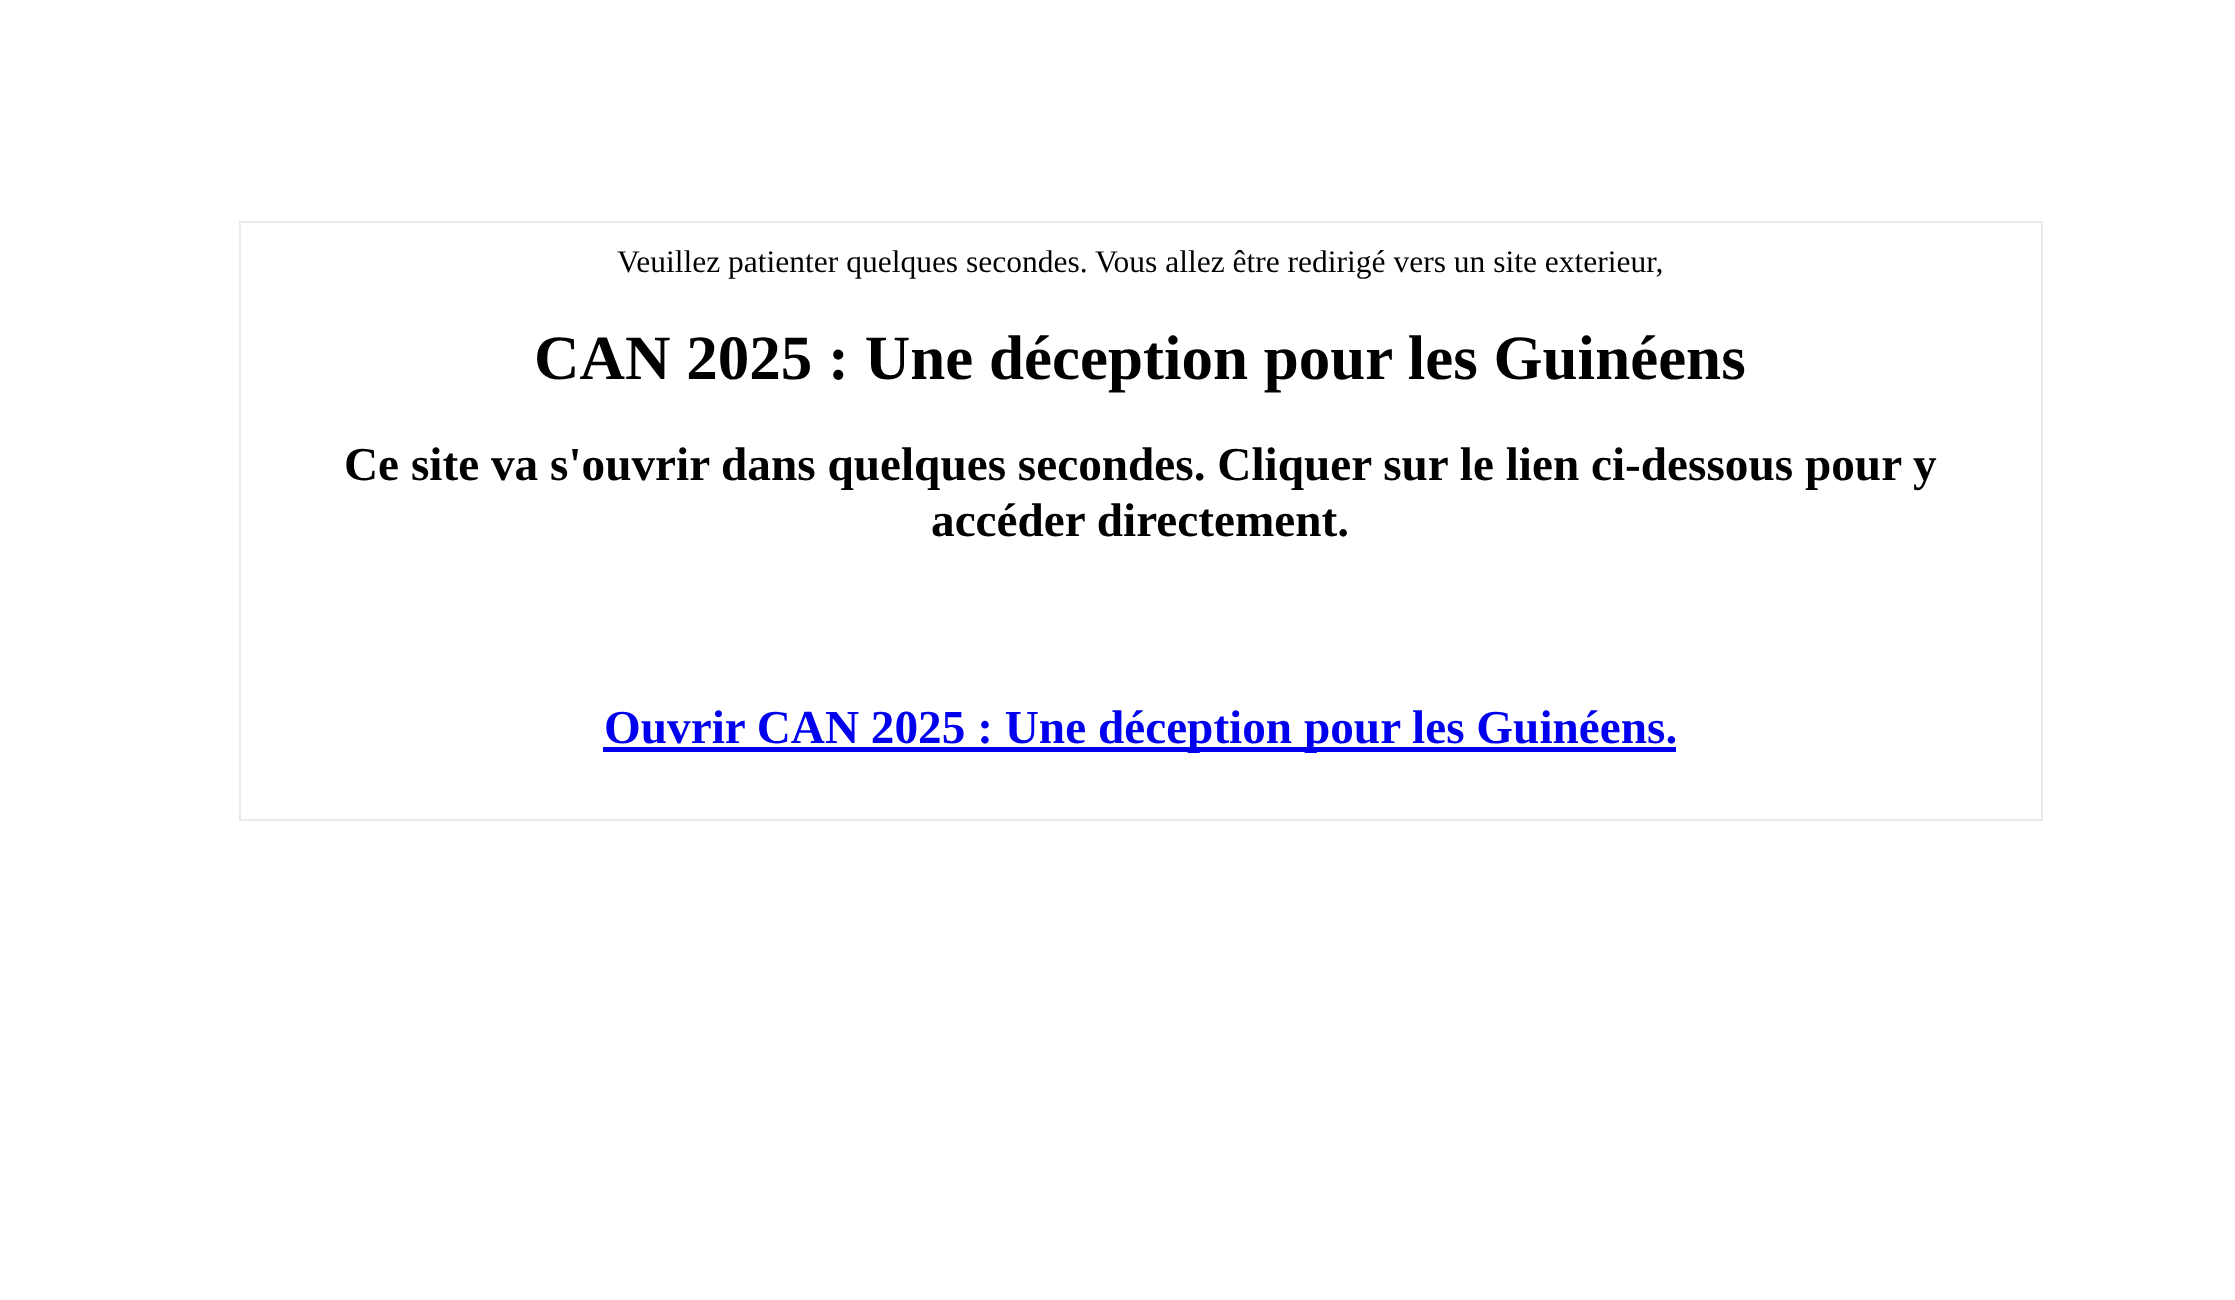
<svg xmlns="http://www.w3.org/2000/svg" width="2235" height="1300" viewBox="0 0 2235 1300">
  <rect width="100%" height="100%" fill="#fff"/>
  <path d="M240 222h1802v598H240z" fill="none" stroke="#eaeaea" stroke-width="2"/>
  <path d="M603 747h1073v5H603z" fill="#00e"/>
  <text x="617" y="272" font-family="Liberation Serif" font-size="31.5" fill="#000">Veuillez patienter quelques secondes. Vous allez être redirigé vers un site exterieur,</text>
  <text x="534" y="379" font-family="Liberation Serif" font-size="63" font-weight="bold" fill="#000">CAN 2025 : Une déception pour les Guinéens</text>
  <g font-family="Liberation Serif" font-size="47.25" font-weight="bold" fill="#000">
    <text x="344" y="480">Ce site va s'ouvrir dans quelques secondes. Cliquer sur le lien ci-dessous pour y</text>
    <text x="931" y="536">accéder directement.</text>
  </g>
  <text x="604" y="743" font-family="Liberation Serif" font-size="47.25" font-weight="bold" fill="#00e">Ouvrir CAN 2025 : Une déception pour les Guinéens.</text>
</svg>
